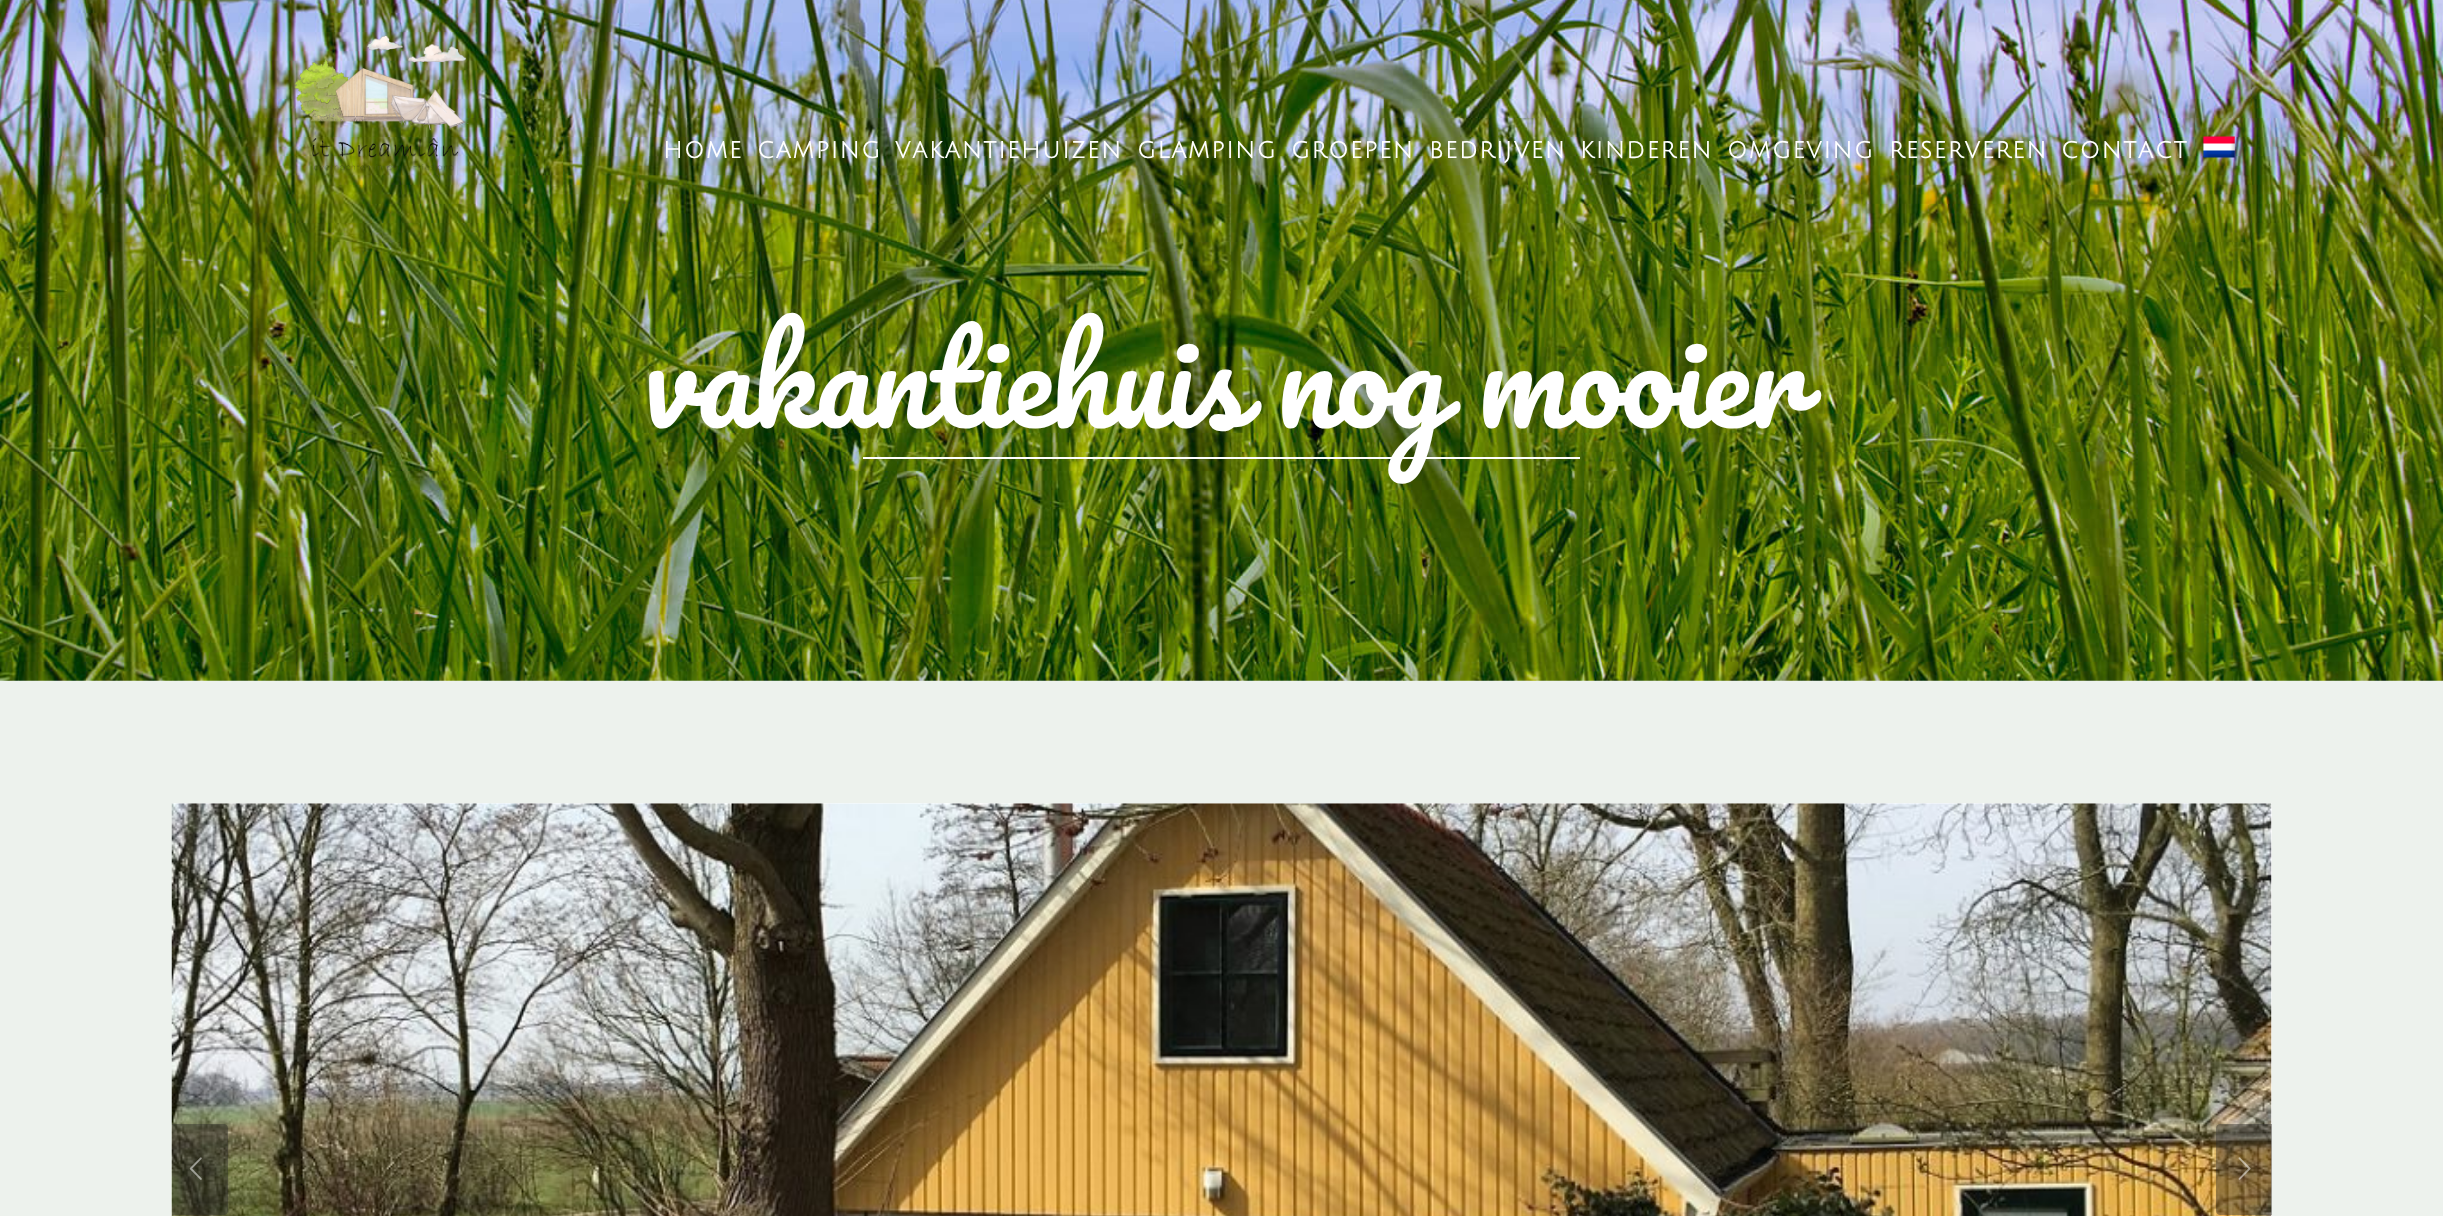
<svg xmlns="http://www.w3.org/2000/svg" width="2443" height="1216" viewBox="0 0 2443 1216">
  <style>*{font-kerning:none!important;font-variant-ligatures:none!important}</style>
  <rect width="100%" height="100%" fill="#edf2ed"/>
  <image x="0" y="0" width="2443" height="681" href="img/1.png"/>
  <image x="294" y="35" width="175" height="137" href="img/2.png"/>
  <image x="2202" y="136" width="33" height="22" href="img/3.png"/>
  <path d="M863 457h717v2H863z" fill="#fff"/>
  <path d="M172 803h2100v413H172z" fill="#fff"/>
  <image x="171" y="803" width="2101" height="413" href="img/4.png"/>
  <path d="M172 1124H224C226 1124 228 1126 228 1128V1211C228 1213 226 1215 224 1215H172Z" fill="#25252566"/>
  <image x="189" y="1157" width="13" height="23" href="img/5.png"/>
  <path d="M2220 1124H2272V1215H2220C2218 1215 2216 1213 2216 1211V1128C2216 1126 2218 1124 2220 1124Z" fill="#25252566"/>
  <image x="2238" y="1157" width="13" height="23" href="img/6.png"/>
  <g font-family="Julius Sans One" font-size="22.75" font-weight="bold" letter-spacing="1.75" fill="#fff">
    <text x="663" y="158">HOME</text>
    <text x="757" y="158">CAMPING</text>
    <text x="895" y="158">VAKANTIEHUIZEN</text>
    <text x="1137" y="158">GLAMPING</text>
    <text x="1291" y="158">GROEPEN</text>
    <text x="1429" y="158">BEDRIJVEN</text>
    <text x="1580" y="158">KINDEREN</text>
    <text x="1727" y="158">OMGEVING</text>
    <text x="1889" y="158">RESERVEREN</text>
    <text x="2061" y="158">CONTACT</text>
  </g>
  <text x="643" y="428" word-spacing="1" font-family="Pacifico" font-size="122.5" letter-spacing="-1.75" fill="#fff">vakantiehuis nog mooier</text>
</svg>
